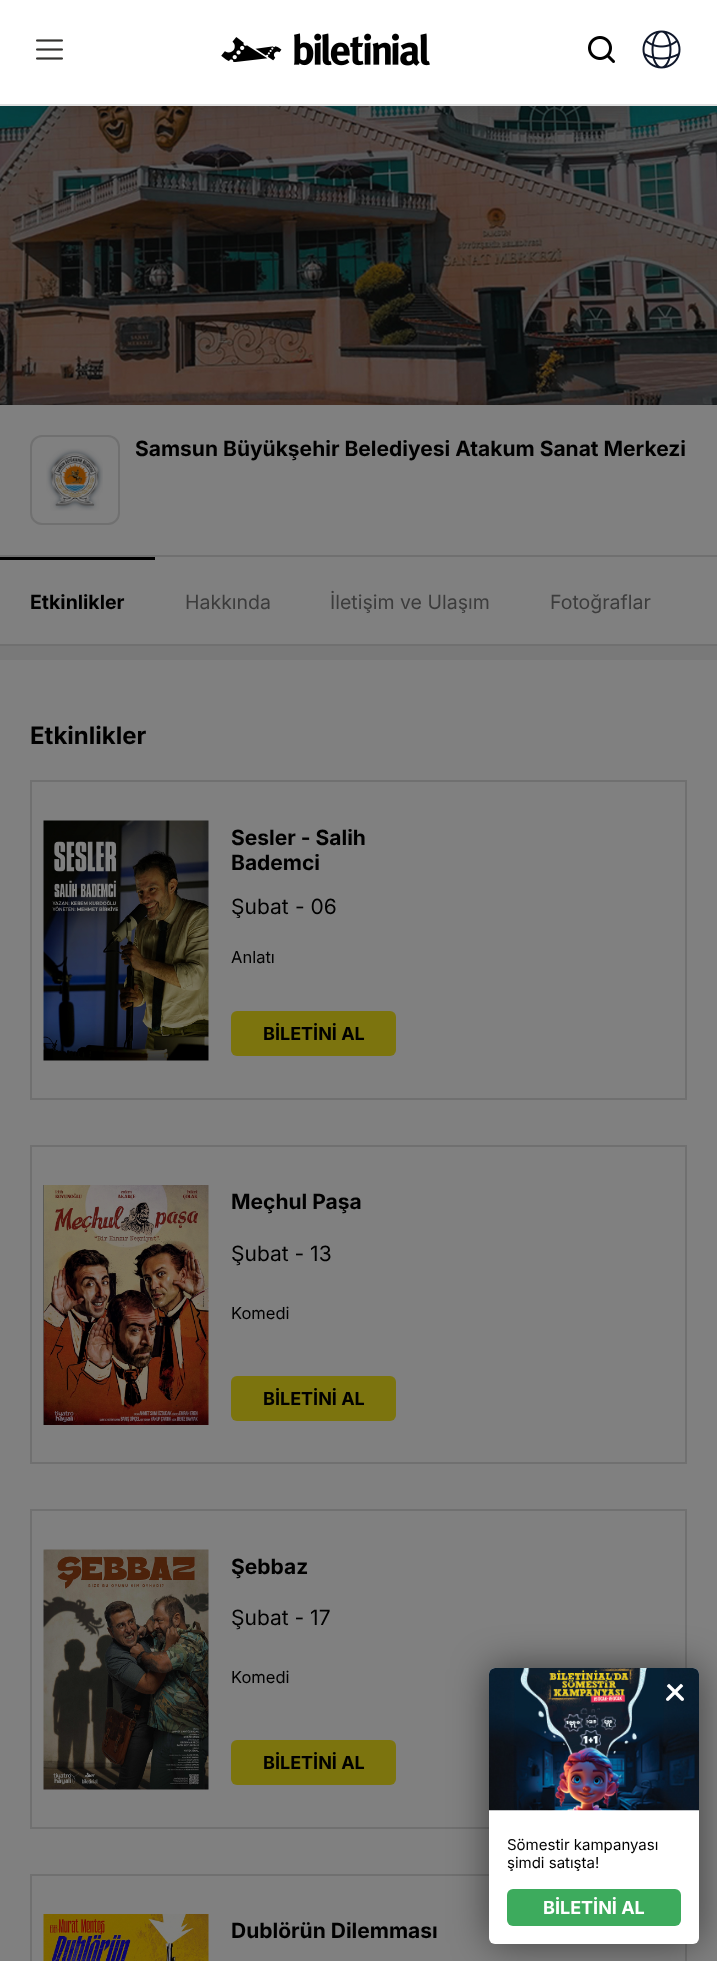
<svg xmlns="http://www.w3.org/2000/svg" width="717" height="1961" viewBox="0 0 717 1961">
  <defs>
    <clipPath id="clip1"><path d="M231 893h285v25H231z"/></clipPath>
  </defs>
  <rect width="100%" height="100%" fill="#808080"/>
  <image x="0" y="106" width="717" height="299" href="img/5.png"/>
  <path d="M0 0h717v105H0z" fill="#00000026" filter="blur(15px)"/>
  <path d="M0 0h717v104H0z" fill="#fff"/>
  <path d="M0 104h717v2H0z" fill="#e1e1e1"/>
  <image x="36" y="39" width="27" height="21" href="img/1.png"/>
  <image x="221" y="33" width="209" height="33" href="img/2.png"/>
  <image x="588" y="36" width="27" height="27" href="img/3.png"/>
  <image x="642" y="30" width="39" height="39" href="img/4.png"/>
  <rect x="31" y="436" width="88" height="88" rx="11" fill="none" stroke="#707070" stroke-width="2"/>
  <image x="46" y="448" width="57" height="63" href="img/6.png"/>
  <path d="M0 555h717v2H0z" fill="#707070"/>
  <path d="M0 644h717v2H0z" fill="#707070"/>
  <path d="M0 557h155v3H0z" fill="#000"/>
  <path d="M0 646h717v14H0z" fill="#797979"/>
  <path d="M31 781h655v318H31z" fill="none" stroke="#707070" stroke-width="2"/>
  <image x="43" y="820" width="166" height="241" href="img/7.png"/>
  <rect x="231" y="1011" width="165" height="45" rx="6" fill="#7c740e"/>
  <path d="M31 1146h655v317H31z" fill="none" stroke="#707070" stroke-width="2"/>
  <image x="43" y="1185" width="166" height="240" href="img/8.png"/>
  <rect x="231" y="1376" width="165" height="45" rx="6" fill="#7c740e"/>
  <path d="M31 1510h655v318H31z" fill="none" stroke="#707070" stroke-width="2"/>
  <image x="43" y="1549" width="166" height="241" href="img/9.png"/>
  <rect x="231" y="1740" width="165" height="45" rx="6" fill="#7c740e"/>
  <path d="M31 1875h655v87H31z" fill="none" stroke="#707070" stroke-width="2"/>
  <image x="43" y="1914" width="166" height="47" href="img/10.png"/>
  <rect x="489" y="1668" width="210" height="276" rx="6" fill="#00000080" filter="blur(19px)"/>
  <rect x="489" y="1668" width="210" height="276" rx="6" fill="#fff"/>
  <image x="489" y="1668" width="210" height="143" href="img/11.png"/>
  <image x="666" y="1683" width="18" height="18" href="img/12.png"/>
  <rect x="507" y="1889" width="174" height="37" rx="6" fill="#3dab5d"/>
  <text x="135" y="456" font-family="Inter" font-size="21" font-weight="bold" fill="#000">Samsun Büyükşehir Belediyesi Atakum Sanat Merkezi</text>
  <text x="30" y="609" font-family="Inter" font-size="19.5" font-weight="bold" fill="#000">Etkinlikler</text>
  <g font-family="Inter" font-size="19.5" fill="#3c3c3c">
    <text x="185" y="609">Hakkında</text>
    <text x="330" y="609">İletişim ve Ulaşım</text>
    <text x="550" y="609">Fotoğraflar</text>
  </g>
  <text x="30" y="744" font-family="Inter" font-size="24" font-weight="bold" fill="#000">Etkinlikler</text>
  <g font-family="Inter" font-size="21" font-weight="bold" fill="#000">
    <text x="231" y="845">Sesler - Salih</text>
    <text x="231" y="870">Bademci</text>
  </g>
  <g clip-path="url(#clip1)">
    <text x="231" y="914" font-family="Inter" font-size="21" fill="#000">Şubat</text>
  </g>
  <text x="295" y="914" font-family="Inter" font-size="21" fill="#000">- 06</text>
  <text x="231" y="963" font-family="Inter" font-size="16.5" fill="#000">Anlatı</text>
  <text x="263" y="1040" font-family="Inter" font-size="18" font-weight="bold" fill="#000">BİLETİNİ AL</text>
  <text x="231" y="1209" font-family="Inter" font-size="21" font-weight="bold" fill="#000">Meçhul Paşa</text>
  <text x="231" y="1261" font-family="Inter" font-size="21" fill="#000">Şubat - 13</text>
  <text x="231" y="1319" font-family="Inter" font-size="16.5" fill="#000">Komedi</text>
  <text x="263" y="1405" font-family="Inter" font-size="18" font-weight="bold" fill="#000">BİLETİNİ AL</text>
  <text x="231" y="1574" font-family="Inter" font-size="21" font-weight="bold" fill="#000">Şebbaz</text>
  <text x="231" y="1625" font-family="Inter" font-size="21" fill="#000">Şubat - 17</text>
  <text x="231" y="1683" font-family="Inter" font-size="16.5" fill="#000">Komedi</text>
  <text x="263" y="1769" font-family="Inter" font-size="18" font-weight="bold" fill="#000">BİLETİNİ AL</text>
  <text x="231" y="1938" font-family="Inter" font-size="21" font-weight="bold" fill="#000">Dublörün Dilemması</text>
  <g font-family="Inter" font-size="15" fill="#000">
    <text x="507" y="1850">Sömestir kampanyası</text>
    <text x="507" y="1868">şimdi satışta!</text>
  </g>
  <text x="543" y="1914" font-family="Inter" font-size="18" font-weight="bold" fill="#fff">BİLETİNİ AL</text>
</svg>
